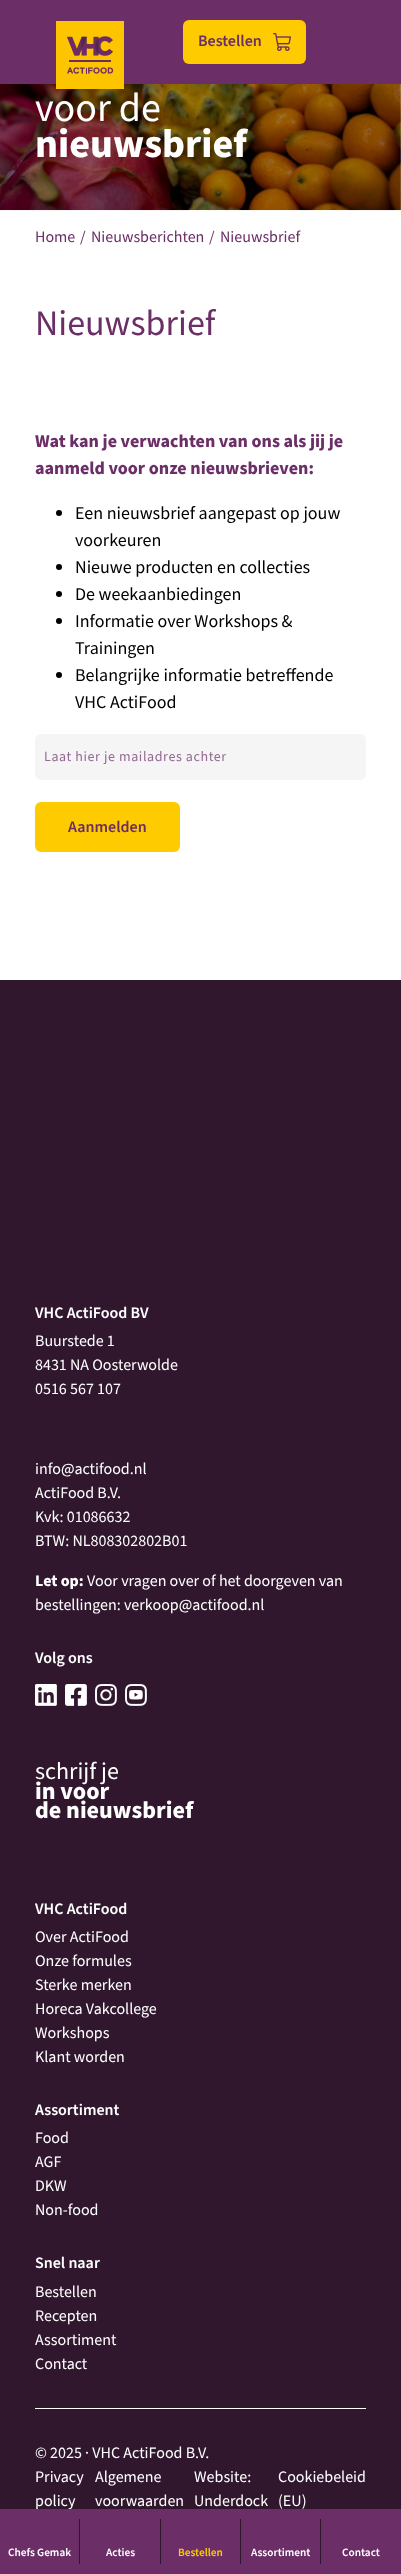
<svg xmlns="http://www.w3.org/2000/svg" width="401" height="2574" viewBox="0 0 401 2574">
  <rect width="100%" height="100%" fill="#fff"/>
  <path d="M0 0h401v84H0z" fill="#6b2e67"/>
  <image x="0" y="84" width="401" height="127" href="img/3.png"/>
  <image x="56" y="21" width="68" height="68" href="img/1.png"/>
  <rect x="183" y="20" width="123" height="44" rx="6" fill="#fdcb00"/>
  <image x="273" y="33" width="18" height="18" href="img/2.png"/>
  <circle cx="59" cy="513" r="3" fill="#000"/>
  <circle cx="59" cy="567" r="3" fill="#000"/>
  <circle cx="59" cy="594" r="3" fill="#000"/>
  <circle cx="59" cy="621" r="3" fill="#000"/>
  <circle cx="59" cy="675" r="3" fill="#000"/>
  <rect x="35" y="734" width="331" height="46" rx="6" fill="#f5f5f5"/>
  <rect x="35" y="802" width="145" height="50" rx="6" fill="#fdcb00"/>
  <path d="M0 980h401v1529H0z" fill="#30172e"/>
  <image x="35" y="1684" width="22" height="22" href="img/4.png"/>
  <image x="65" y="1684" width="22" height="22" href="img/5.png"/>
  <image x="95" y="1684" width="22" height="22" href="img/6.png"/>
  <image x="125" y="1684" width="22" height="22" href="img/7.png"/>
  <path d="M35 2408h331v1H35z" fill="#fff"/>
  <text x="198" y="46" font-family="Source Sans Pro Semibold" font-size="16" font-weight="600" fill="#6b2e67">Bestellen</text>
  <text x="35" y="121" font-family="Source Sans Pro" font-size="40" fill="#fff">voor de</text>
  <text x="35" y="157" font-family="Source Sans Pro" font-size="40" font-weight="bold" fill="#fff">nieuwsbrief</text>
  <g font-family="Source Sans Pro" font-size="16" fill="#6b2e67">
    <text x="35" y="242">Home</text>
    <text x="80" y="242">/</text>
    <text x="91" y="242">Nieuwsberichten</text>
    <text x="209" y="242">/</text>
    <text x="220" y="242">Nieuwsbrief</text>
  </g>
  <text x="35" y="335" font-family="Source Sans Pro" font-size="36" fill="#6b2e67">Nieuwsbrief</text>
  <g font-family="Source Sans Pro" font-size="18" font-weight="bold" fill="#6b2e67">
    <text x="35" y="447">Wat kan je verwachten van ons als jij je</text>
    <text x="35" y="474">aanmeld voor onze nieuwsbrieven:</text>
  </g>
  <g font-family="Source Sans Pro" font-size="18" fill="#000">
    <text x="75" y="519">Een nieuwsbrief aangepast op jouw</text>
    <text x="75" y="546">voorkeuren</text>
    <text x="75" y="573">Nieuwe producten en collecties</text>
    <text x="75" y="600">De weekaanbiedingen</text>
    <text x="75" y="627">Informatie over Workshops &amp;</text>
    <text x="75" y="654">Trainingen</text>
    <text x="75" y="681">Belangrijke informatie betreffende</text>
    <text x="75" y="708">VHC ActiFood</text>
  </g>
  <text x="44" y="761" font-family="Source Sans Pro" font-size="14" letter-spacing="0.6" fill="#946a92">Laat hier je mailadres achter</text>
  <text x="68" y="832" font-family="Source Sans Pro Semibold" font-size="16" font-weight="600" fill="#6b2e67">Aanmelden</text>
  <text x="35" y="1318" font-family="Source Sans Pro Semibold" font-size="16" font-weight="600" fill="#fff">VHC ActiFood BV</text>
  <g font-family="Source Sans Pro" font-size="16" fill="#fff">
    <text x="35" y="1346">Buurstede 1</text>
    <text x="35" y="1370">8431 NA Oosterwolde</text>
    <text x="35" y="1394">0516 567 107</text>
    <text x="35" y="1474">info@actifood.nl</text>
    <text x="35" y="1498">ActiFood B.V.</text>
    <text x="35" y="1522">Kvk: 01086632</text>
    <text x="35" y="1546">BTW: NL808302802B01</text>
  </g>
  <text x="35" y="1586" font-family="Source Sans Pro" font-size="16" font-weight="bold" fill="#fff">Let op:</text>
  <g font-family="Source Sans Pro" font-size="16" fill="#fff">
    <text x="87" y="1586">Voor vragen over of het doorgeven van</text>
    <text x="35" y="1610">bestellingen: verkoop@actifood.nl</text>
  </g>
  <text x="35" y="1663" font-family="Source Sans Pro Semibold" font-size="16" font-weight="600" fill="#fff">Volg ons</text>
  <text x="35" y="1779" font-family="Source Sans Pro" font-size="24" fill="#fff">schrijf je</text>
  <g font-family="Source Sans Pro" font-size="24" font-weight="bold" fill="#fff">
    <text x="35" y="1799">in voor</text>
    <text x="35" y="1818">de nieuwsbrief</text>
  </g>
  <text x="35" y="1914" font-family="Source Sans Pro Semibold" font-size="16" font-weight="600" fill="#fff">VHC ActiFood</text>
  <g font-family="Source Sans Pro" font-size="16" fill="#fff">
    <text x="35" y="1942">Over ActiFood</text>
    <text x="35" y="1966">Onze formules</text>
    <text x="35" y="1990">Sterke merken</text>
    <text x="35" y="2014">Horeca Vakcollege</text>
    <text x="35" y="2038">Workshops</text>
    <text x="35" y="2062">Klant worden</text>
  </g>
  <text x="35" y="2115" font-family="Source Sans Pro Semibold" font-size="16" font-weight="600" fill="#fff">Assortiment</text>
  <g font-family="Source Sans Pro" font-size="16" fill="#fff">
    <text x="35" y="2143">Food</text>
    <text x="35" y="2167">AGF</text>
    <text x="35" y="2191">DKW</text>
    <text x="35" y="2215">Non-food</text>
  </g>
  <text x="35" y="2268" font-family="Source Sans Pro Semibold" font-size="16" font-weight="600" fill="#fff">Snel naar</text>
  <g font-family="Source Sans Pro" font-size="16" fill="#fff">
    <text x="35" y="2297">Bestellen</text>
    <text x="35" y="2321">Recepten</text>
    <text x="35" y="2345">Assortiment</text>
    <text x="35" y="2369">Contact</text>
    <text x="35" y="2458">© 2025 · VHC ActiFood B.V.</text>
    <text x="35" y="2482">Privacy</text>
    <text x="35" y="2506">policy</text>
    <text x="95" y="2482">Algemene</text>
    <text x="95" y="2506">voorwaarden</text>
    <text x="194" y="2482">Website:</text>
    <text x="194" y="2506">Underdock</text>
    <text x="278" y="2482">Cookiebeleid</text>
    <text x="278" y="2506">(EU)</text>
  </g>
  <path d="M0 2509h401v65H0z" fill="#6b2e67"/>
  <path d="M79 2519h1v45H79z" fill="#30172e"/>
  <text x="8" y="2556" font-family="Source Sans Pro Semibold" font-size="11.25" font-weight="600" fill="#fff">Chefs Gemak</text>
  <path d="M160 2519h1v45H160z" fill="#30172e"/>
  <text x="106" y="2556" font-family="Source Sans Pro Semibold" font-size="11.25" font-weight="600" fill="#fff">Acties</text>
  <path d="M240 2519h1v45H240z" fill="#30172e"/>
  <text x="178" y="2556" font-family="Source Sans Pro Semibold" font-size="11.25" font-weight="600" fill="#fdcb00">Bestellen</text>
  <path d="M320 2519h1v45H320z" fill="#30172e"/>
  <g font-family="Source Sans Pro Semibold" font-size="11.25" font-weight="600" fill="#fff">
    <text x="251" y="2556">Assortiment</text>
    <text x="342" y="2556">Contact</text>
  </g>
</svg>
